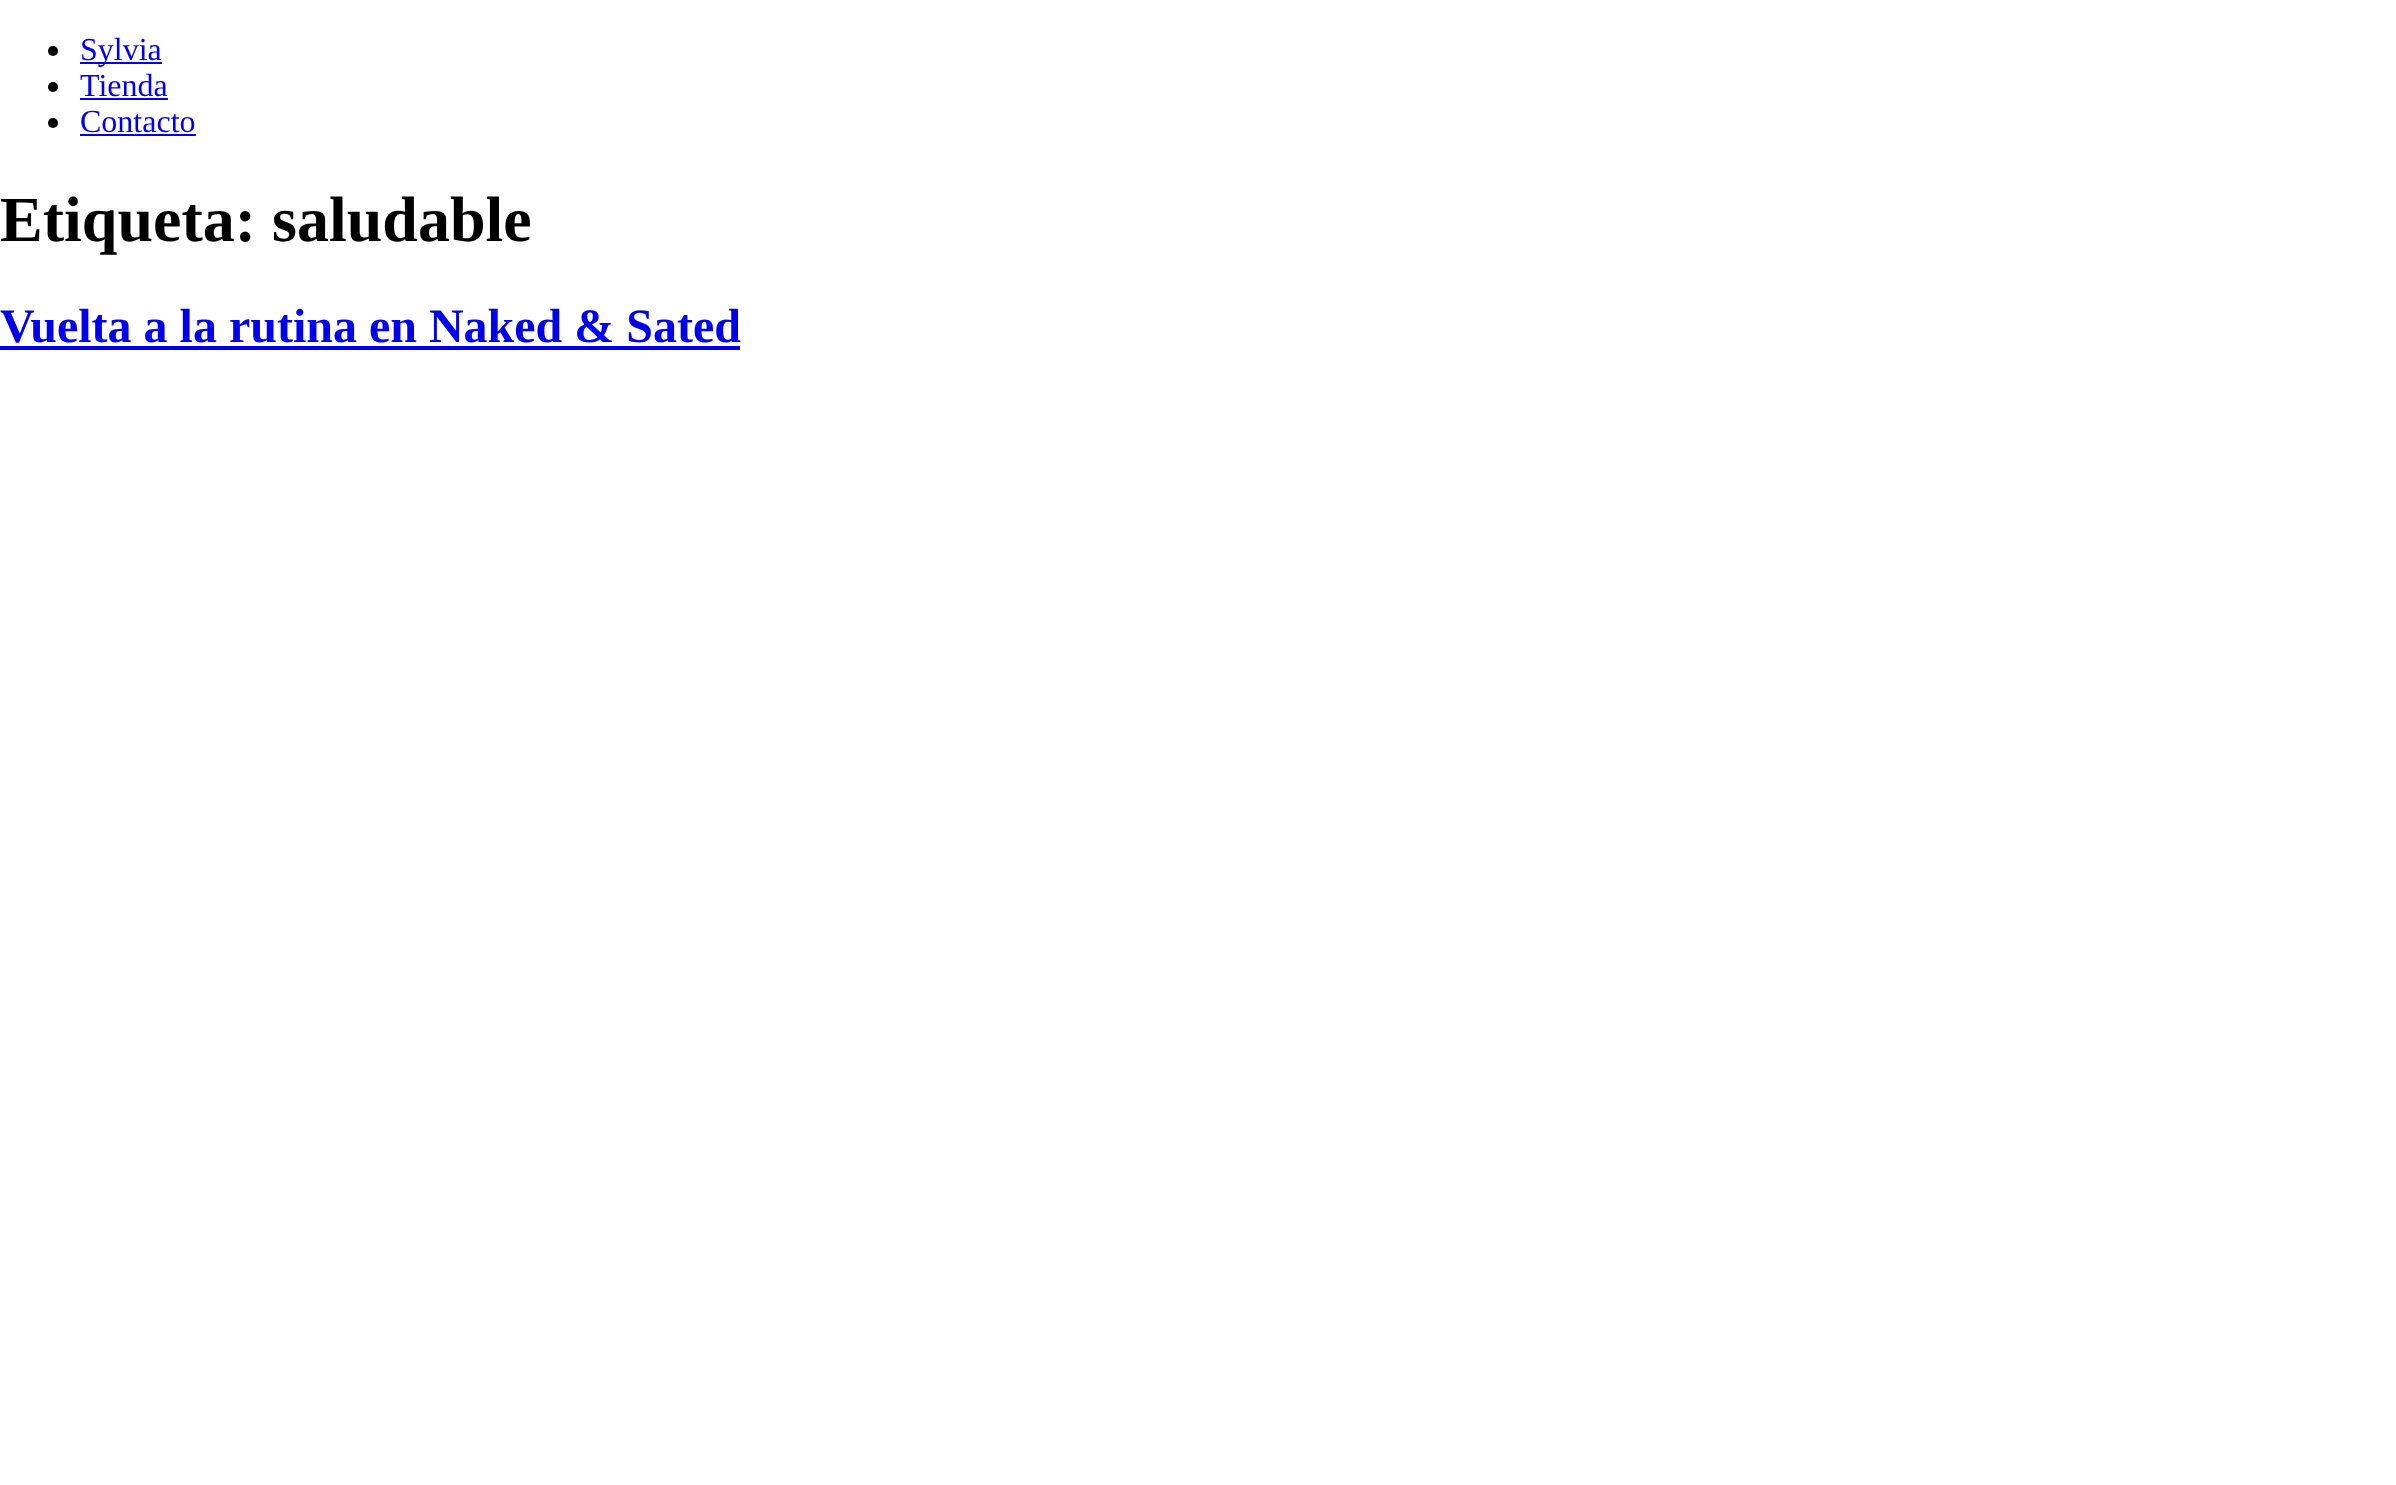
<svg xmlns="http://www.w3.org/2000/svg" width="2396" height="1485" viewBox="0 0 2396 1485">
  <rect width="100%" height="100%" fill="#fff"/>
  <circle cx="53" cy="51" r="5" fill="#000"/>
  <path d="M80 62h82v2H80z" fill="#00e"/>
  <circle cx="53" cy="87" r="5" fill="#000"/>
  <path d="M80 98h88v2H80z" fill="#00e"/>
  <circle cx="53" cy="123" r="5" fill="#000"/>
  <path d="M80 134h116v2H80z" fill="#00e"/>
  <path d="M0 346h740v4H0z" fill="#00e"/>
  <g font-family="Liberation Serif" font-size="32" fill="#00e">
    <text x="80" y="60">Sylvia</text>
    <text x="80" y="96">Tienda</text>
    <text x="80" y="132">Contacto</text>
  </g>
  <text x="0" y="241" font-family="Liberation Serif" font-size="64" font-weight="bold" fill="#000">Etiqueta: saludable</text>
  <text x="0" y="342" font-family="Liberation Serif" font-size="48" font-weight="bold" fill="#00e">Vuelta a la rutina en Naked &amp; Sated</text>
</svg>
